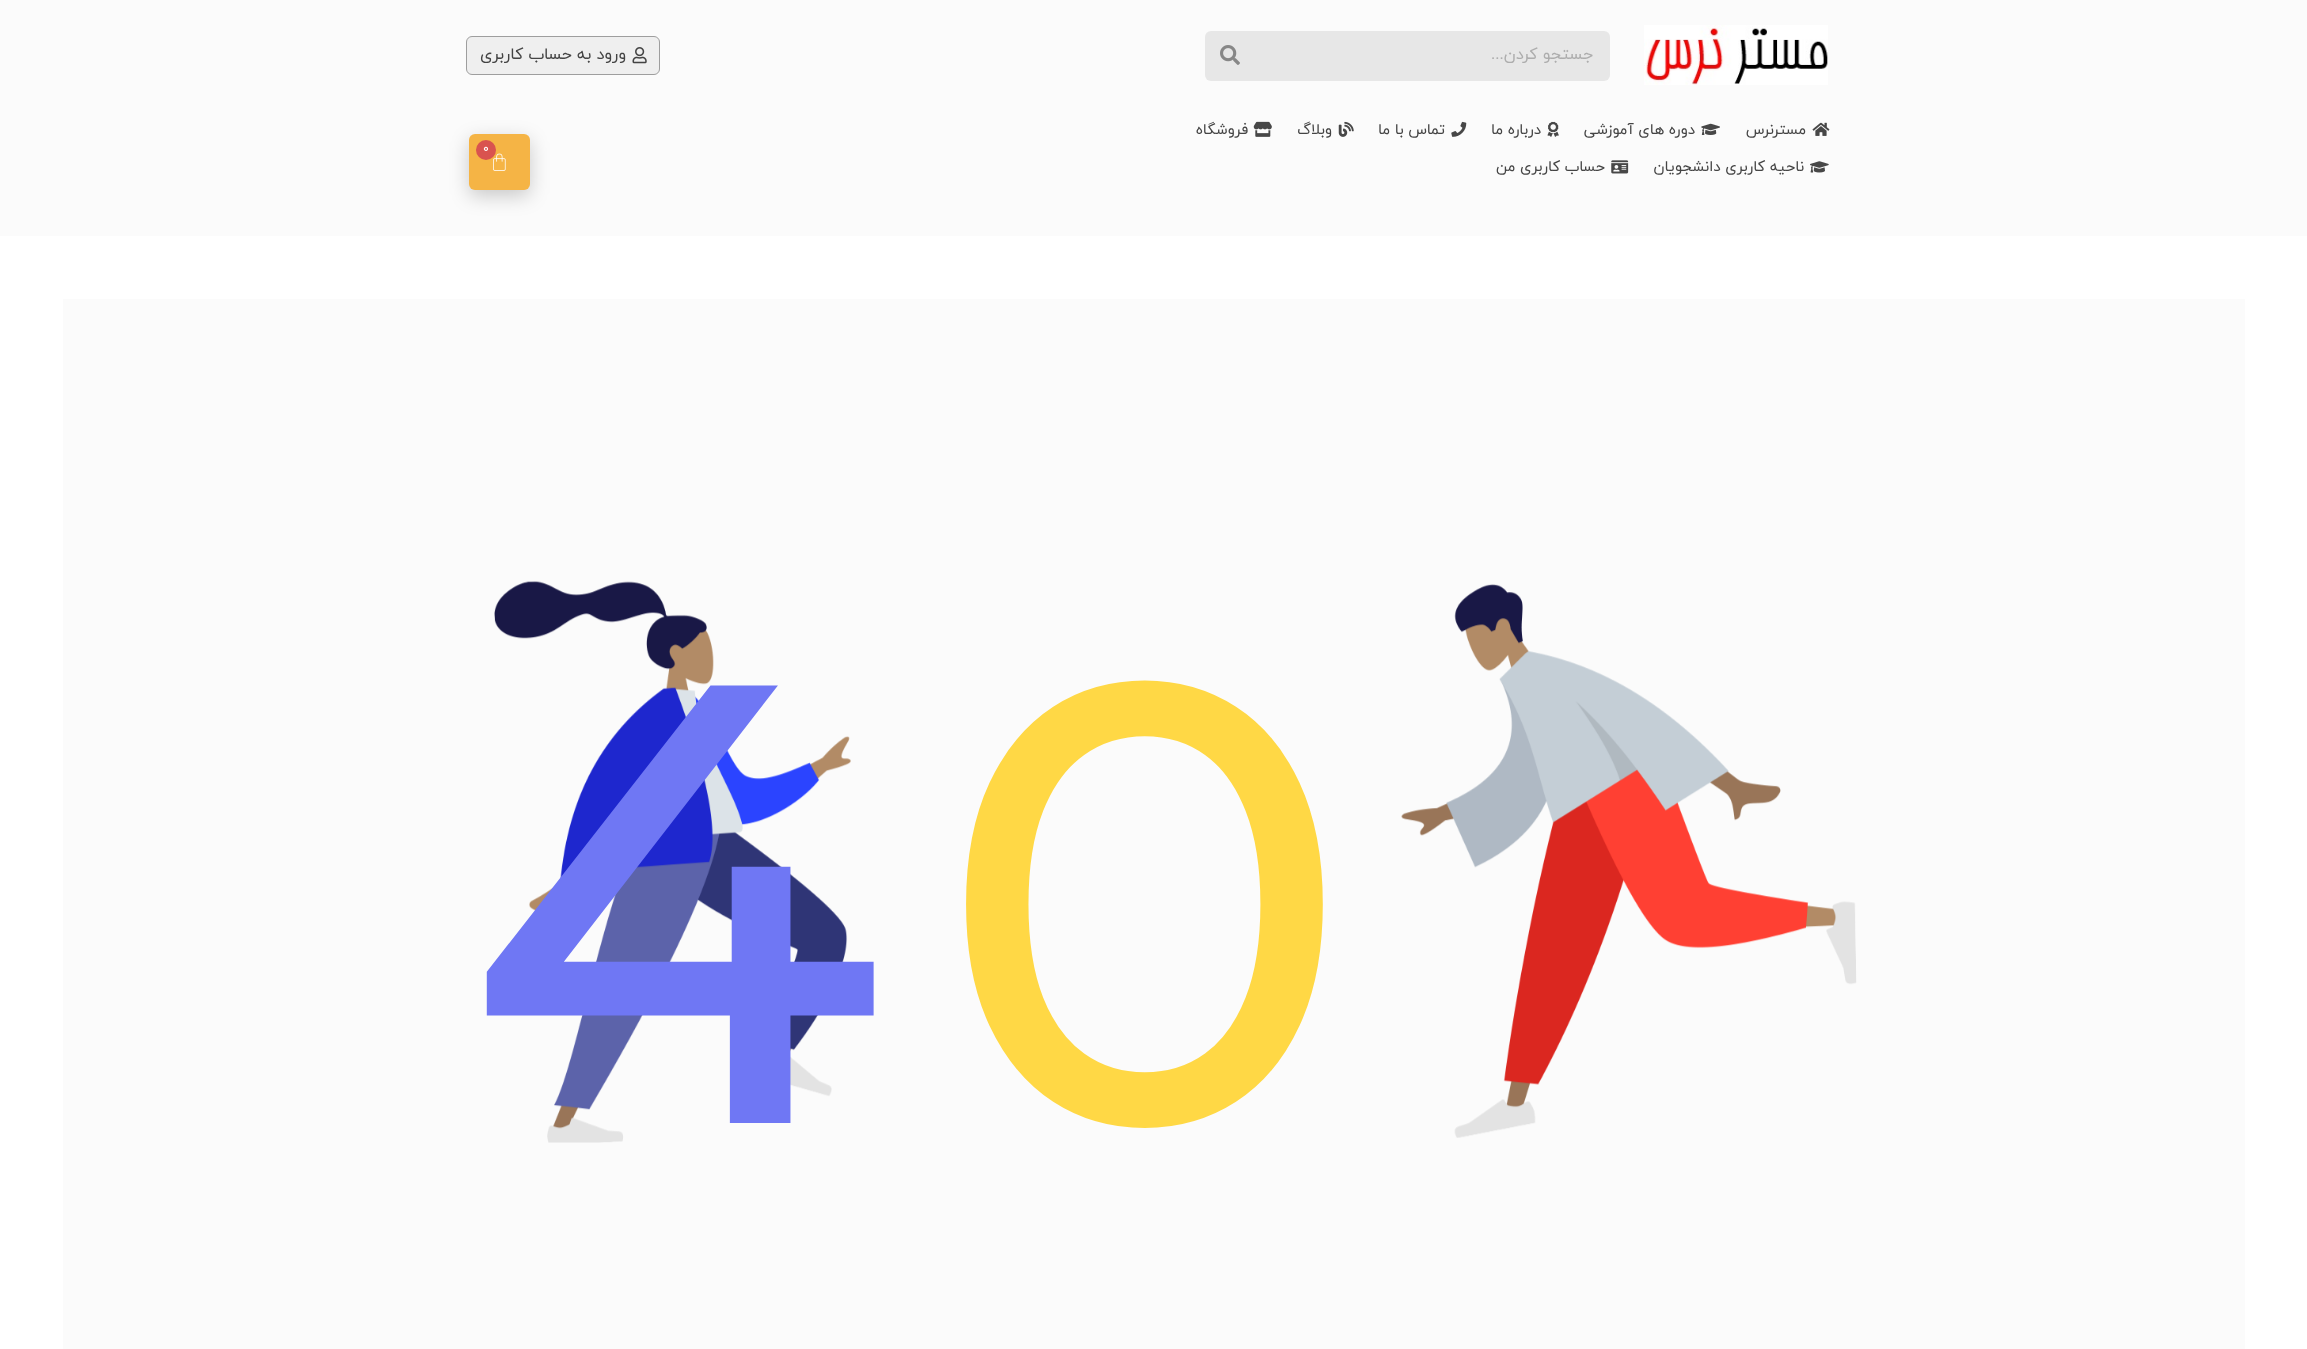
<svg xmlns="http://www.w3.org/2000/svg" width="2307" height="1349" viewBox="0 0 2307 1349">
  <rect width="100%" height="100%" fill="#fbfbfb"/>
  <image x="1644" y="25" width="184" height="60" href="img/1.png"/>
  <rect x="1205" y="31" width="405" height="50" rx="6" fill="#e7e7e7"/>
  <image x="1220" y="45" width="20" height="20" href="img/2.png"/>
  <rect x="466.5" y="36.5" width="193" height="38" rx="5.5" fill="#efefef" stroke="#9e9e9e"/>
  <image x="632" y="47" width="15" height="17" href="img/3.png"/>
  <image x="1812" y="122" width="18" height="14" href="img/4.png"/>
  <image x="1701" y="123" width="19" height="12" href="img/5.png"/>
  <image x="1547" y="121" width="12" height="16" href="img/6.png"/>
  <image x="1451" y="121" width="16" height="16" href="img/7.png"/>
  <image x="1338" y="121" width="16" height="16" href="img/8.png"/>
  <image x="1253" y="121" width="19" height="16" href="img/9.png"/>
  <image x="1810" y="161" width="19" height="12" href="img/10.png"/>
  <image x="1611" y="160" width="18" height="14" href="img/11.png"/>
  <rect x="469" y="140" width="61" height="56" rx="6" fill="#00000033" filter="blur(9.5px)"/>
  <rect x="469" y="134" width="61" height="56" rx="6" fill="#f5b445"/>
  <image x="493" y="153" width="13" height="18" href="img/12.png"/>
  <circle cx="486" cy="150" r="10" fill="#d9534f"/>
  <path d="M63 236h2182v63H63z" fill="#fff"/>
  <path d="M2245 236h62v1113H2245z" fill="#fff"/>
  <path d="M0 236h63v1113H0z" fill="#fff"/>
  <image x="1401" y="584" width="456" height="554" href="img/13.png"/>
  <image x="494" y="581" width="357" height="562" href="img/14.png"/>
  <text x="1593" y="59" font-family="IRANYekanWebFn" font-size="16.25" direction="rtl" fill="#adadad">جستجو کردن...</text>
  <text x="626" y="59" font-family="IRANYekanWebFn" font-size="16.25" direction="rtl" fill="#444">ورود به حساب کاربری</text>
  <g font-family="IRANYekanWebFn" font-size="15" direction="rtl" fill="#444">
    <text x="1806" y="134">مسترنرس</text>
    <text x="1695" y="134">دوره های آموزشی</text>
    <text x="1541" y="134">درباره ما</text>
    <text x="1445" y="134">تماس با ما</text>
    <text x="1332" y="134">وبلاگ</text>
    <text x="1248" y="134">فروشگاه</text>
    <text x="1804" y="171">ناحیه کاربری دانشجویان</text>
    <text x="1605" y="171">حساب کاربری من</text>
  </g>
  <text x="483" y="152" font-family="IRANYekanWebFn" font-size="12" fill="#fff">0</text>
  <text x="936" y="1123" font-family="Montserrat" font-size="625" font-weight="500" fill="#ffd845">0</text>
  <text x="463" y="1123" font-family="Montserrat" font-size="625" font-weight="500" fill="#6f77f4">4</text>
</svg>
